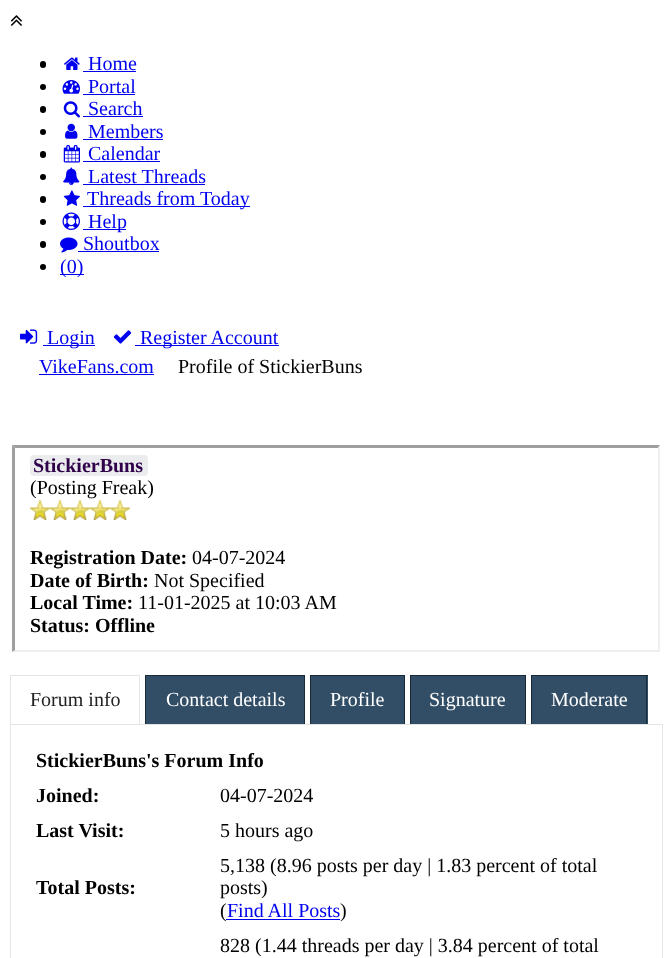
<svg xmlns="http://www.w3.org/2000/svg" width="672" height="958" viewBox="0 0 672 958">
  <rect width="100%" height="100%" fill="#fff"/>
  <image x="10" y="15" width="12" height="11" href="img/1.png"/>
  <rect x="40" y="61" width="6" height="7" rx="3" fill="#000"/>
  <image x="64" y="57" width="16" height="13" href="img/2.png"/>
  <path d="M83 71h53v1H83z" fill="#00e"/>
  <circle cx="43" cy="87" r="3" fill="#000"/>
  <image x="62" y="80" width="18" height="14" href="img/3.png"/>
  <path d="M83 94h52v1H83z" fill="#00e"/>
  <rect x="40" y="106" width="6" height="7" rx="3" fill="#000"/>
  <image x="63" y="101" width="17" height="17" href="img/4.png"/>
  <path d="M83 116h60v1H83z" fill="#00e"/>
  <circle cx="43" cy="132" r="3" fill="#000"/>
  <image x="65" y="123" width="13" height="16" href="img/5.png"/>
  <path d="M83 139h80v1H83z" fill="#00e"/>
  <rect x="40" y="151" width="6" height="7" rx="3" fill="#000"/>
  <image x="63" y="145" width="17" height="18" href="img/6.png"/>
  <path d="M83 161h77v1H83z" fill="#00e"/>
  <circle cx="43" cy="177" r="3" fill="#000"/>
  <image x="63" y="167" width="17" height="18" href="img/7.png"/>
  <path d="M83 184h122v1H83z" fill="#00e"/>
  <rect x="40" y="196" width="6" height="7" rx="3" fill="#000"/>
  <image x="63" y="190" width="17" height="16" href="img/8.png"/>
  <path d="M83 206h167v1H83z" fill="#00e"/>
  <circle cx="43" cy="222" r="3" fill="#000"/>
  <image x="62" y="212" width="18" height="18" href="img/9.png"/>
  <path d="M83 229h43v1H83z" fill="#00e"/>
  <rect x="40" y="241" width="6" height="7" rx="3" fill="#000"/>
  <image x="60" y="237" width="18" height="16" href="img/10.png"/>
  <path d="M78 251h81v1H78z" fill="#00e"/>
  <circle cx="43" cy="267" r="3" fill="#000"/>
  <path d="M60 274h24v1H60z" fill="#00e"/>
  <image x="20" y="329" width="18" height="15" href="img/11.png"/>
  <path d="M43 345h52v1H43z" fill="#00e"/>
  <image x="113" y="330" width="19" height="14" href="img/12.png"/>
  <path d="M135 345h144v1H135z" fill="#00e"/>
  <path d="M39 374h115v1H39z" fill="#00e"/>
  <path d="M12 445H660L658 448H15Z" fill="#9f9f9f"/>
  <path d="M660 445V652L658 650V448Z" fill="#efefef"/>
  <path d="M660 652H12L15 650H658Z" fill="#efefef"/>
  <path d="M12 652V445L15 448V650Z" fill="#9f9f9f"/>
  <rect x="30" y="455" width="118" height="21" rx="4" fill="#eaecee"/>
  <image x="30" y="500" width="20" height="20" href="img/13.png"/>
  <image x="50" y="500" width="20" height="20" href="img/14.png"/>
  <image x="70" y="500" width="20" height="20" href="img/14.png"/>
  <image x="90" y="500" width="20" height="20" href="img/14.png"/>
  <image x="110" y="500" width="20" height="20" href="img/14.png"/>
  <path d="M10 675h130v1H10z" fill="#e5e5e5"/>
  <path d="M139 675h1v49H139z" fill="#e5e5e5"/>
  <path d="M10 675h1v49H10z" fill="#e5e5e5"/>
  <path d="M146 676h158v48H146z" fill="#324e66"/>
  <path d="M145 675h160v1H145z" fill="#1a2936"/>
  <path d="M304 675h1v49H304z" fill="#1a2936"/>
  <path d="M145 675h1v49H145z" fill="#1a2936"/>
  <path d="M311 676h93v48H311z" fill="#324e66"/>
  <path d="M310 675h95v1H310z" fill="#1a2936"/>
  <path d="M404 675h1v49H404z" fill="#1a2936"/>
  <path d="M310 675h1v49H310z" fill="#1a2936"/>
  <path d="M411 676h114v48H411z" fill="#324e66"/>
  <path d="M410 675h116v1H410z" fill="#1a2936"/>
  <path d="M525 675h1v49H525z" fill="#1a2936"/>
  <path d="M410 675h1v49H410z" fill="#1a2936"/>
  <path d="M532 676h116v48H532z" fill="#324e66"/>
  <path d="M531 675h117v1H531z" fill="#1a2936"/>
  <path d="M646 675h1v49H646z" fill="#1a2936"/>
  <path d="M531 675h1v49H531z" fill="#1a2936"/>
  <path d="M10.5 724.5h652v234H10.5z" fill="none" stroke="#e5e5e5"/>
  <g font-family="Liberation Serif" font-size="20" fill="#00e">
    <text x="88" y="70">Home</text>
    <text x="88" y="93">Portal</text>
    <text x="88" y="115">Search</text>
    <text x="88" y="138">Members</text>
    <text x="88" y="160">Calendar</text>
    <text x="88" y="183">Latest Threads</text>
    <text x="87" y="205">Threads from Today</text>
    <text x="88" y="228">Help</text>
    <text x="83" y="250">Shoutbox</text>
    <text x="60" y="273">(0)</text>
    <text x="47" y="344">Login</text>
    <text x="140" y="344">Register Account</text>
    <text x="39" y="373">VikeFans.com</text>
  </g>
  <text x="178" y="373" font-family="Liberation Serif" font-size="20" fill="#000">Profile of StickierBuns</text>
  <text x="33" y="472" font-family="Liberation Serif" font-size="20" font-weight="bold" fill="#2f0049">StickierBuns</text>
  <text x="30" y="494" font-family="Liberation Serif" font-size="20" fill="#000">(Posting Freak)</text>
  <text x="30" y="564" font-family="Liberation Serif" font-size="20" font-weight="bold" fill="#000">Registration Date:</text>
  <text x="192" y="564" font-family="Liberation Serif" font-size="20" fill="#000">04-07-2024</text>
  <text x="30" y="587" font-family="Liberation Serif" font-size="20" font-weight="bold" fill="#000">Date of Birth:</text>
  <text x="154" y="587" font-family="Liberation Serif" font-size="20" fill="#000">Not Specified</text>
  <text x="30" y="609" font-family="Liberation Serif" font-size="20" font-weight="bold" fill="#000">Local Time:</text>
  <text x="138" y="609" font-family="Liberation Serif" font-size="20" fill="#000">11-01-2025 at 10:03 AM</text>
  <text x="30" y="632" font-family="Liberation Serif" font-size="20" font-weight="bold" fill="#000">Status: Offline</text>
  <text x="30" y="706" font-family="Liberation Serif" font-size="20" fill="#222">Forum info</text>
  <g font-family="Liberation Serif" font-size="20" fill="#fff">
    <text x="166" y="706">Contact details</text>
    <text x="330" y="706">Profile</text>
    <text x="429" y="706">Signature</text>
    <text x="551" y="706">Moderate</text>
  </g>
  <g font-family="Liberation Serif" font-size="20" font-weight="bold" fill="#000">
    <text x="36" y="767">StickierBuns's Forum Info</text>
    <text x="36" y="802">Joined:</text>
  </g>
  <text x="220" y="802" font-family="Liberation Serif" font-size="20" fill="#000">04-07-2024</text>
  <text x="36" y="837" font-family="Liberation Serif" font-size="20" font-weight="bold" fill="#000">Last Visit:</text>
  <text x="220" y="837" font-family="Liberation Serif" font-size="20" fill="#000">5 hours ago</text>
  <text x="36" y="894" font-family="Liberation Serif" font-size="20" font-weight="bold" fill="#000">Total Posts:</text>
  <g font-family="Liberation Serif" font-size="20" fill="#000">
    <text x="220" y="872">5,138 (8.96 posts per day | 1.83 percent of total</text>
    <text x="220" y="894">posts)</text>
    <text x="220" y="917">(</text>
  </g>
  <path d="M226 919h114v1H226z" fill="#00e"/>
  <text x="227" y="917" font-family="Liberation Serif" font-size="20" fill="#00e">Find All Posts</text>
  <g font-family="Liberation Serif" font-size="20" fill="#000">
    <text x="340" y="917">)</text>
    <text x="220" y="952">828 (1.44 threads per day | 3.84 percent of total</text>
  </g>
</svg>
